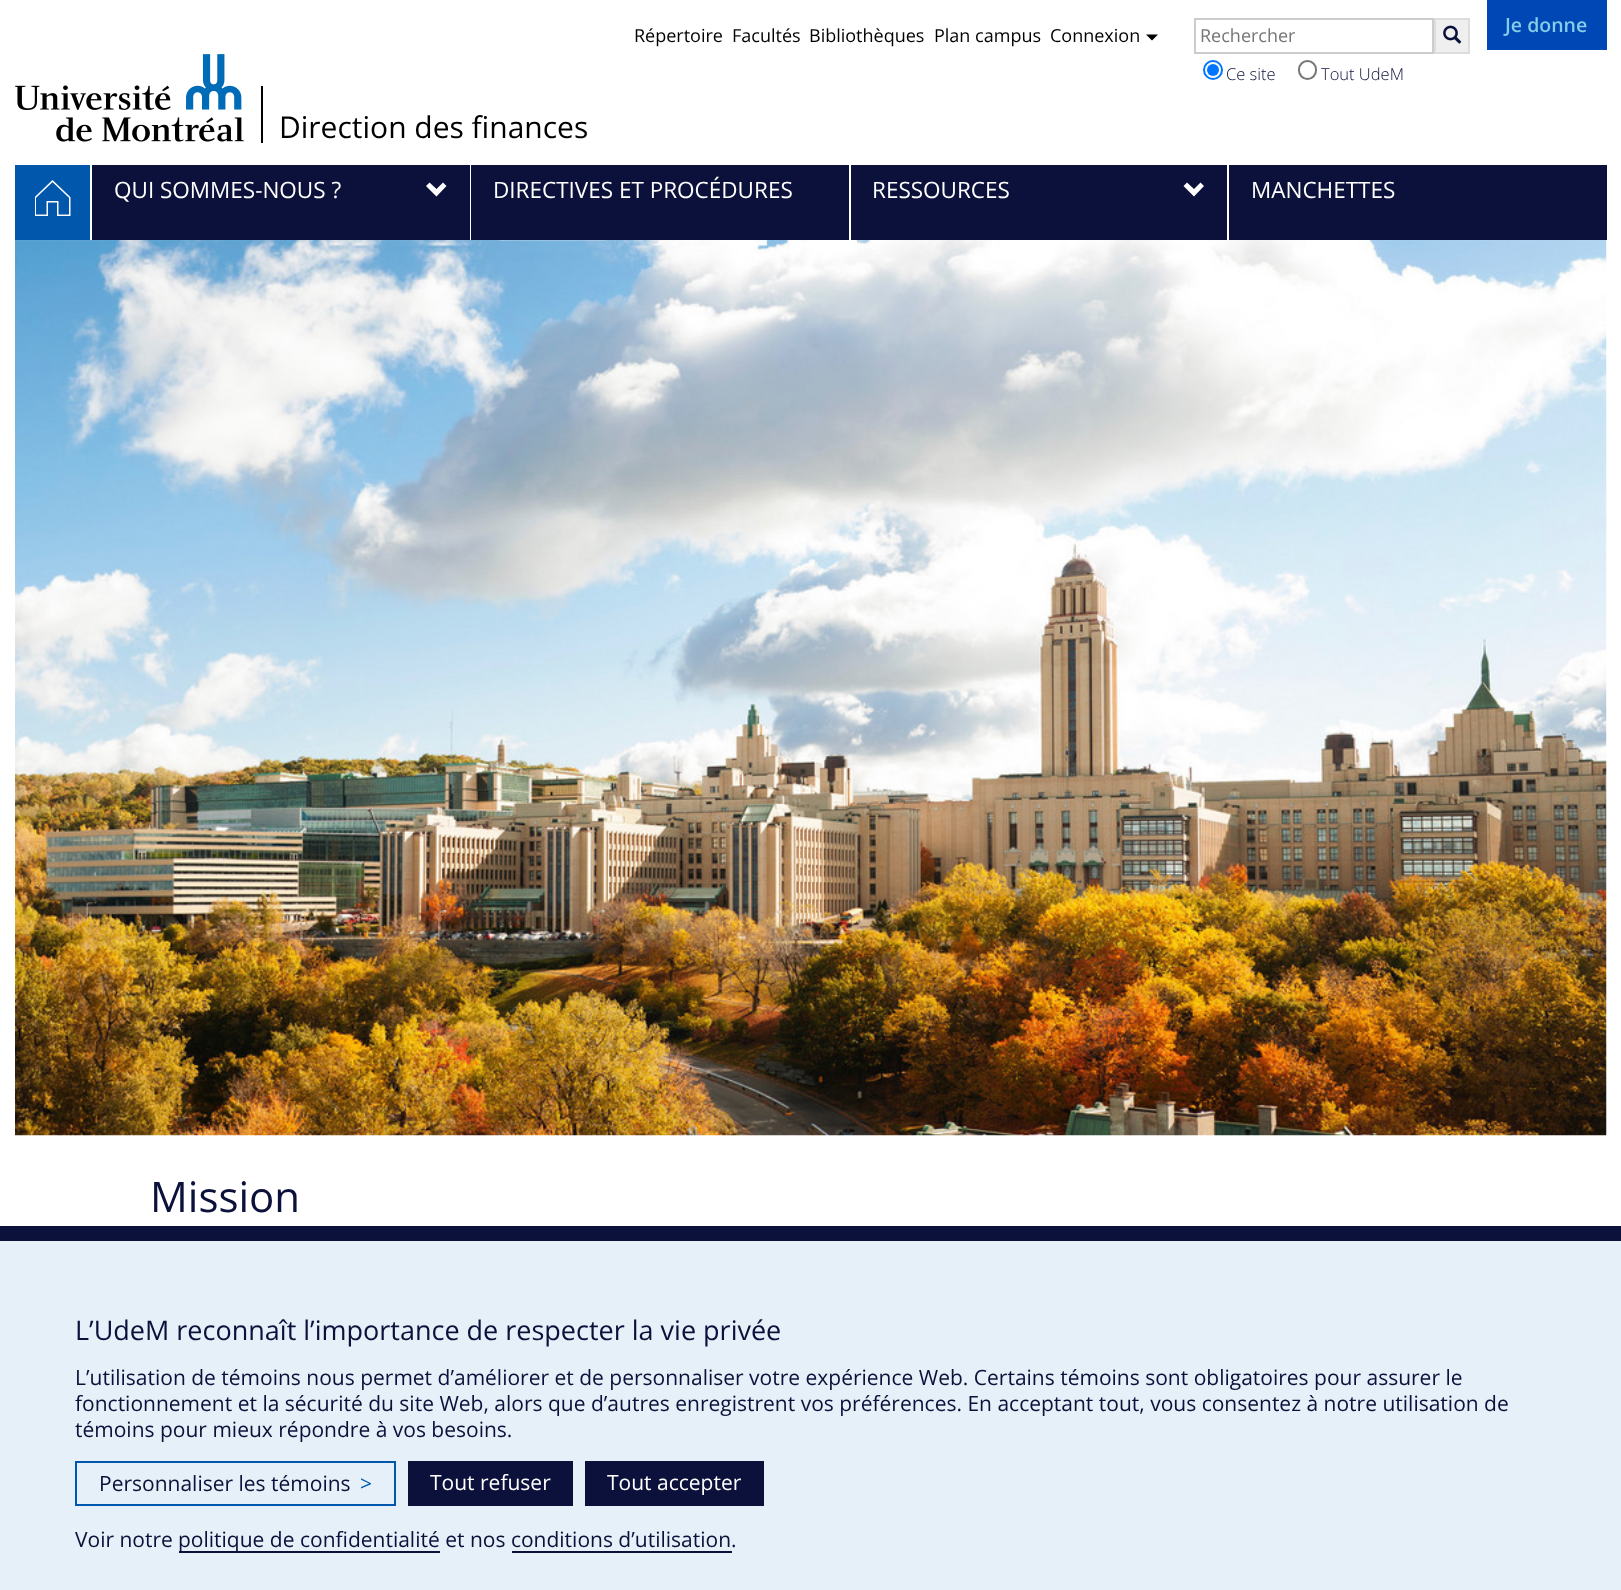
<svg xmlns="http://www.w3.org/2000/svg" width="1621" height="1590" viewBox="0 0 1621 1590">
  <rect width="100%" height="100%" fill="#fff"/>
  <path d="M1146 34.5H1158L1152 40.5Z" fill="#000"/>
  <path d="M1195 19h238v34H1195z" fill="none" stroke="#ccc" stroke-width="2"/>
  <path d="M1435 19h34v34H1435z" fill="#efefef" stroke="#ddd" stroke-width="2"/>
  <image x="1443" y="25" width="19" height="19" href="img/1.png"/>
  <circle cx="1213" cy="70" r="9" fill="none" stroke="#0075ff" stroke-width="2"/>
  <circle cx="1213" cy="70" r="6" fill="#0075ff"/>
  <rect x="1299" y="61" width="17" height="18" rx="8.5" fill="none" stroke="#767676" stroke-width="2"/>
  <path d="M1487 0h120v50H1487z" fill="#0047b6"/>
  <image x="15" y="54" width="229" height="88" href="img/2.png"/>
  <path d="M261 86h2v57H261z" fill="#000"/>
  <path d="M15 165h75v75H15z" fill="#0057ac"/>
  <image x="35" y="180" width="36" height="36" href="img/3.png"/>
  <path d="M92 165h378v75H92z" fill="#0b113a"/>
  <path d="M446.5 186L436.5 196.5L426 186L429.5 182.5L436.5 189L443 182.5Z" fill="#fff"/>
  <path d="M471 165h378v75H471z" fill="#0b113a"/>
  <path d="M851 165h376v75H851z" fill="#0b113a"/>
  <path d="M1204 186L1194 196.5L1183.5 186L1187 182.5L1194 189L1200.5 182.5Z" fill="#fff"/>
  <path d="M1229 165h378v75H1229z" fill="#0b113a"/>
  <image x="15" y="240" width="1592" height="896" href="img/4.png"/>
  <path d="M0 1241h1621v349H0z" fill="#e5f0f8"/>
  <path d="M0 1226h1621v15H0z" fill="#0b113a"/>
  <path d="M76 1462h319v43H76z" fill="none" stroke="#0057ac" stroke-width="2"/>
  <path d="M408 1461h165v45H408z" fill="#0b113a"/>
  <path d="M585 1461h179v45H585z" fill="#0b113a"/>
  <path d="M179 1551h261v2H179z" fill="#0b113a"/>
  <path d="M512 1551h220v2H512z" fill="#0b113a"/>
  <g font-family="Open Sans" font-size="18" fill="#000">
    <text x="634" y="42">Répertoire</text>
    <text x="732" y="42">Facultés</text>
    <text x="809" y="42">Bibliothèques</text>
    <text x="934" y="42">Plan campus</text>
    <text x="1050" y="42">Connexion</text>
  </g>
  <text x="1200" y="42" font-family="Open Sans" font-size="18" fill="#757575">Rechercher</text>
  <g font-family="Open Sans" font-size="16.5" font-weight="300" fill="#0b113a">
    <text x="1226" y="80">Ce site</text>
    <text x="1321" y="80">Tout UdeM</text>
  </g>
  <text x="1505" y="32" font-family="Open Sans" font-size="19.5" font-weight="600" fill="#85cde6">Je donne</text>
  <text x="279" y="138" font-family="Open Sans" font-size="30" fill="#000">Direction des finances</text>
  <g font-family="Open Sans" font-size="22.5" fill="#fff">
    <text x="114" y="198">QUI SOMMES-NOUS ?</text>
    <text x="493" y="198">DIRECTIVES ET PROCÉDURES</text>
    <text x="872" y="198">RESSOURCES</text>
    <text x="1251" y="198">MANCHETTES</text>
  </g>
  <text x="150" y="1212" font-family="Open Sans" font-size="42" fill="#0b113a">Mission</text>
  <text x="75" y="1340" font-family="Open Sans" font-size="27" fill="#0b113a">L’UdeM reconnaît l’importance de respecter la vie privée</text>
  <g font-family="Open Sans" font-size="21" fill="#0b113a">
    <text x="75" y="1385">L’utilisation de témoins nous permet d’améliorer et de personnaliser votre expérience Web. Certains témoins sont obligatoires pour assurer le</text>
    <text x="75" y="1411">fonctionnement et la sécurité du site Web, alors que d’autres enregistrent vos préférences. En acceptant tout, vous consentez à notre utilisation de</text>
    <text x="75" y="1437">témoins pour mieux répondre à vos besoins.</text>
    <text x="99" y="1491">Personnaliser les témoins</text>
  </g>
  <text x="360" y="1491" font-family="Open Sans" font-size="21" fill="#0057ac">&gt;</text>
  <g font-family="Open Sans" font-size="21" fill="#fff">
    <text x="430" y="1490">Tout refuser</text>
    <text x="607" y="1490">Tout accepter</text>
  </g>
  <g font-family="Open Sans" font-size="21" fill="#0b113a">
    <text x="75" y="1547">Voir notre</text>
    <text x="178" y="1547">politique de confidentialité et nos conditions d’utilisation.</text>
  </g>
</svg>
